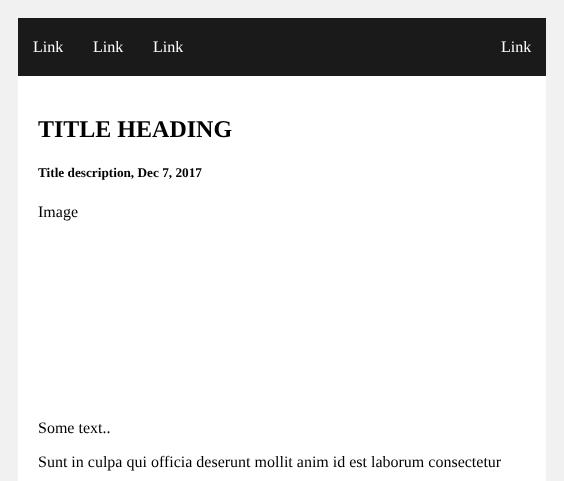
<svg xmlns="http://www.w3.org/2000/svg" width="564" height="481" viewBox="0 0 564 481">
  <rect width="100%" height="100%" fill="#f1f1f1"/>
  <path d="M18 18h528v58H18z" fill="#1a1a1a"/>
  <path d="M18 76h528v405H18z" fill="#fff"/>
  <g font-family="Liberation Serif" font-size="16" fill="#fff">
    <text x="33" y="52">Link</text>
    <text x="93" y="52">Link</text>
    <text x="153" y="52">Link</text>
    <text x="501" y="52">Link</text>
  </g>
  <text x="38" y="137" font-family="Liberation Serif" font-size="24" font-weight="bold" fill="#000">TITLE HEADING</text>
  <text x="38" y="177" font-family="Liberation Serif" font-size="13.25" font-weight="bold" fill="#000">Title description, Dec 7, 2017</text>
  <g font-family="Liberation Serif" font-size="16" fill="#000">
    <text x="38" y="217">Image</text>
    <text x="38" y="433">Some text..</text>
    <text x="38" y="467">Sunt in culpa qui officia deserunt mollit anim id est laborum consectetur</text>
  </g>
</svg>
